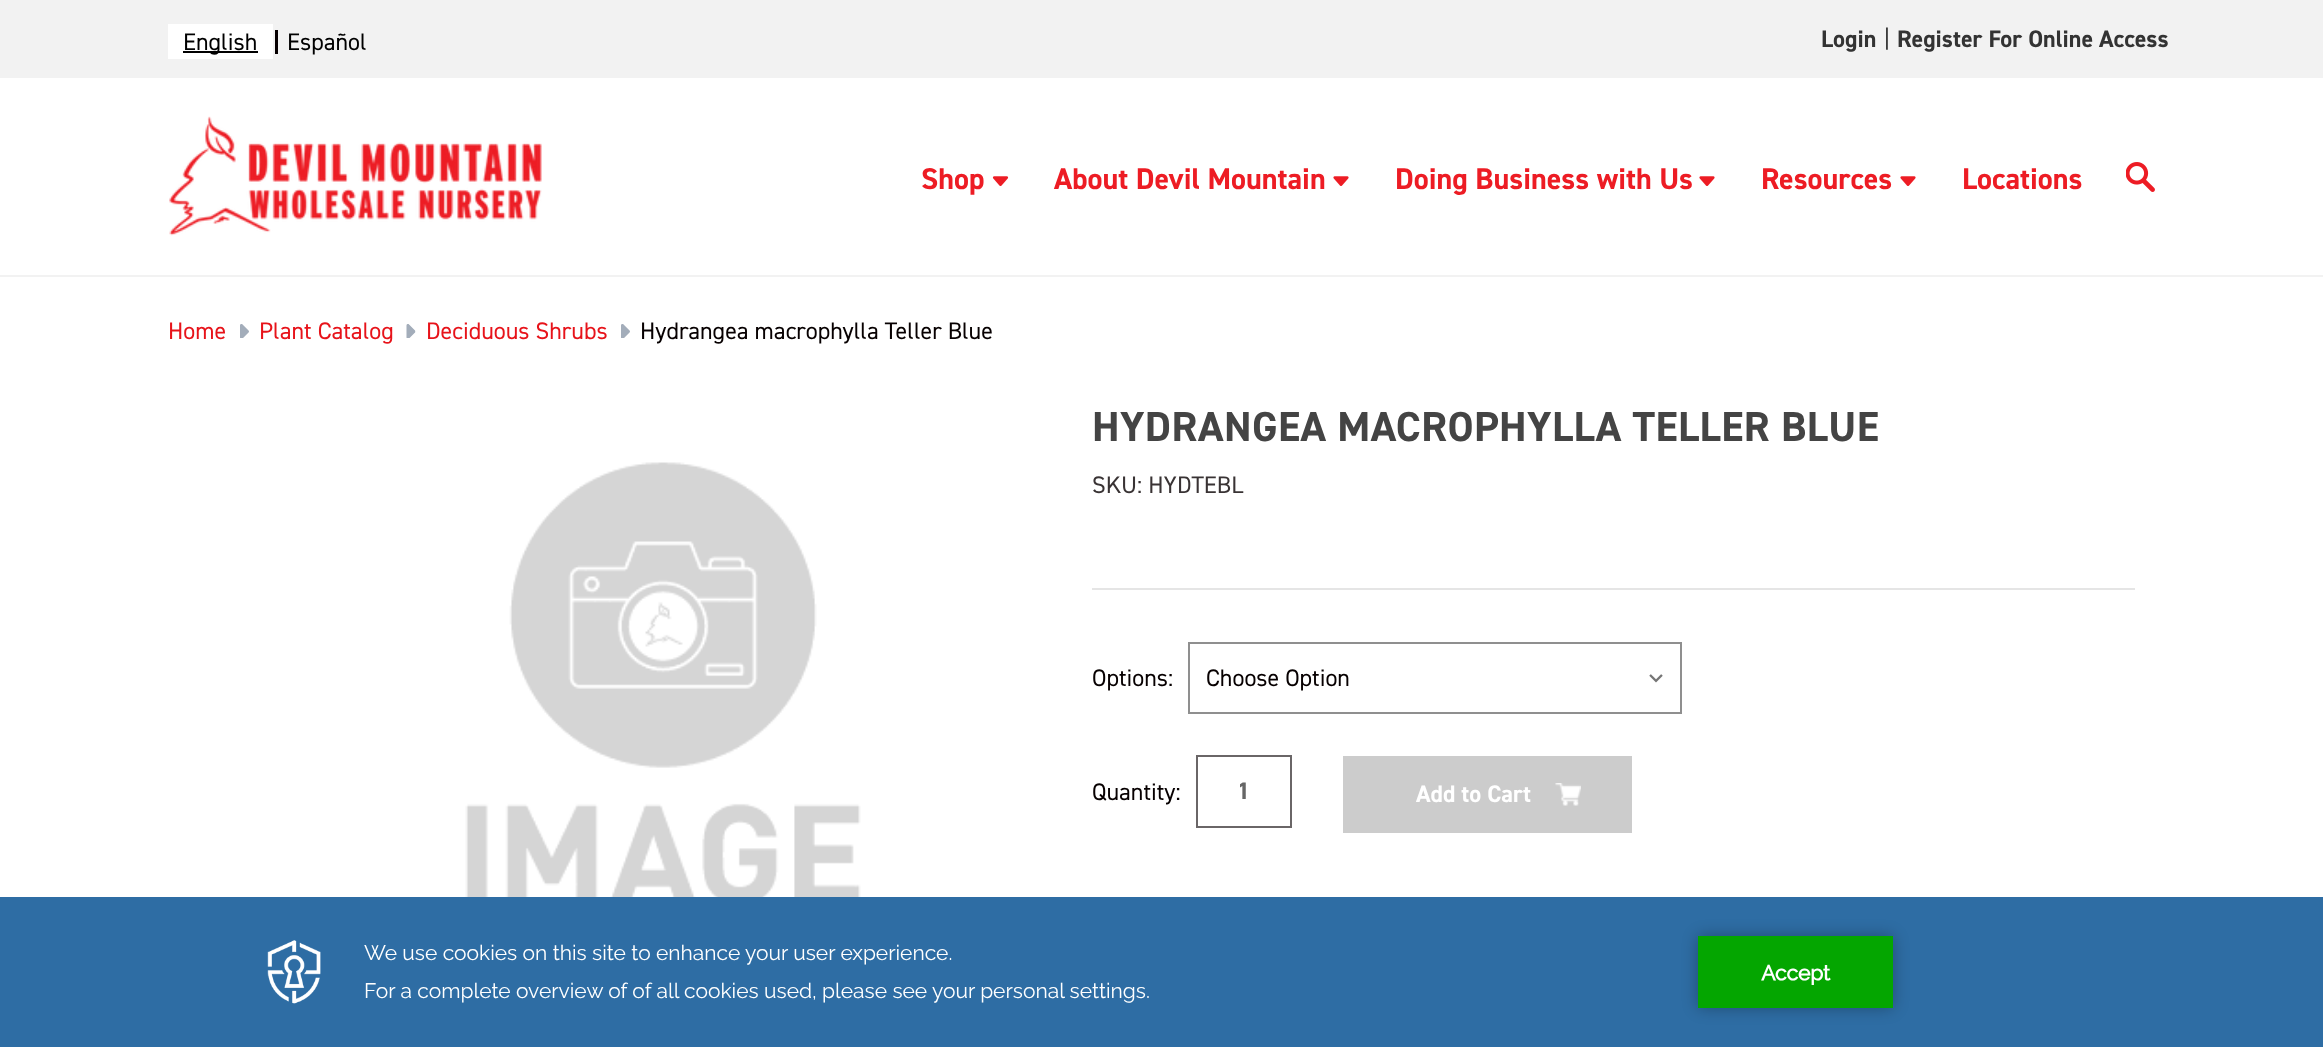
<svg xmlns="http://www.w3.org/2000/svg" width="2323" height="1047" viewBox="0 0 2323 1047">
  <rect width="100%" height="100%" fill="#fff"/>
  <path d="M0 0h2323v78H0z" fill="#f2f2f2"/>
  <path d="M168 24h105v35H168z" fill="#fff"/>
  <path d="M183 51h75v2H183z" fill="#000"/>
  <path d="M275 30h3v24H275z" fill="#070001"/>
  <image x="169" y="116" width="373" height="120" href="img/1.png"/>
  <image x="992" y="176" width="17" height="11" href="img/2.png"/>
  <image x="1333" y="176" width="16" height="10" href="img/3.png"/>
  <image x="1699" y="176" width="16" height="10" href="img/3.png"/>
  <image x="1900" y="176" width="16" height="10" href="img/3.png"/>
  <image x="2126" y="162" width="29" height="30" href="img/4.png"/>
  <path d="M0 275h2323v2H0z" fill="#f2f2f2"/>
  <image x="240" y="324" width="9" height="14" href="img/5.png"/>
  <image x="406" y="324" width="10" height="14" href="img/6.png"/>
  <image x="621" y="324" width="9" height="14" href="img/5.png"/>
  <path d="M1092 588h1043v2H1092z" fill="#e5e5e5"/>
  <image x="465" y="462" width="396" height="435" href="img/7.png"/>
  <image x="1649" y="674" width="14" height="9" href="img/8.png"/>
  <path d="M1189 643h492v70H1189z" fill="none" stroke="#8f8f8f" stroke-width="2"/>
  <path d="M1197 756h94v71H1197z" fill="none" stroke="#6a6667" stroke-width="2"/>
  <path d="M1343 756h289v77H1343z" fill="#ccc"/>
  <image x="1555" y="783" width="26" height="23" href="img/9.png"/>
  <image x="0" y="897" width="2323" height="150" href="img/10.png"/>
  <g font-family="'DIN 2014'" font-size="24" fill="#000">
    <text x="183" y="50">English</text>
    <text x="287" y="50">Español</text>
  </g>
  <text x="1821" y="47" font-family="'DIN 2014'" font-size="24" font-weight="bold" fill="#333">Login</text>
  <text x="1884" y="47" font-family="'DIN 2014'" font-size="24" fill="#333">|</text>
  <text x="1897" y="47" font-family="'DIN 2014'" font-size="24" font-weight="bold" fill="#333">Register For Online Access</text>
  <g font-family="'DIN 2014'" font-size="30" font-weight="bold" fill="#ed1c24">
    <text x="921" y="189">Shop</text>
    <text x="1054" y="189">About Devil Mountain</text>
    <text x="1395" y="189">Doing Business with Us</text>
    <text x="1761" y="189">Resources</text>
    <text x="1962" y="189">Locations</text>
  </g>
  <g font-family="'DIN 2014'" font-size="24" fill="#e7131a">
    <text x="168" y="339">Home</text>
    <text x="259" y="339">Plant Catalog</text>
    <text x="426" y="339">Deciduous Shrubs</text>
  </g>
  <text x="640" y="339" font-family="'DIN 2014'" font-size="24" fill="#070001">Hydrangea macrophylla Teller Blue</text>
  <text x="1092" y="441" font-family="'DIN 2014'" font-size="42" font-weight="bold" letter-spacing="0.4" fill="#444">HYDRANGEA MACROPHYLLA TELLER BLUE</text>
  <text x="1092" y="493" font-family="'DIN 2014'" font-size="24" fill="#393334">SKU: HYDTEBL</text>
  <g font-family="'DIN 2014'" font-size="24" fill="#070001">
    <text x="1092" y="686">Options:</text>
    <text x="1206" y="686">Choose Option</text>
    <text x="1092" y="800">Quantity:</text>
  </g>
  <text x="1237" y="799" font-family="'DIN 2014'" font-size="24" font-weight="bold" fill="#666">1</text>
  <text x="1416" y="802" font-family="'DIN 2014'" font-size="24" font-weight="bold" fill="#fff">Add to Cart</text>
</svg>
